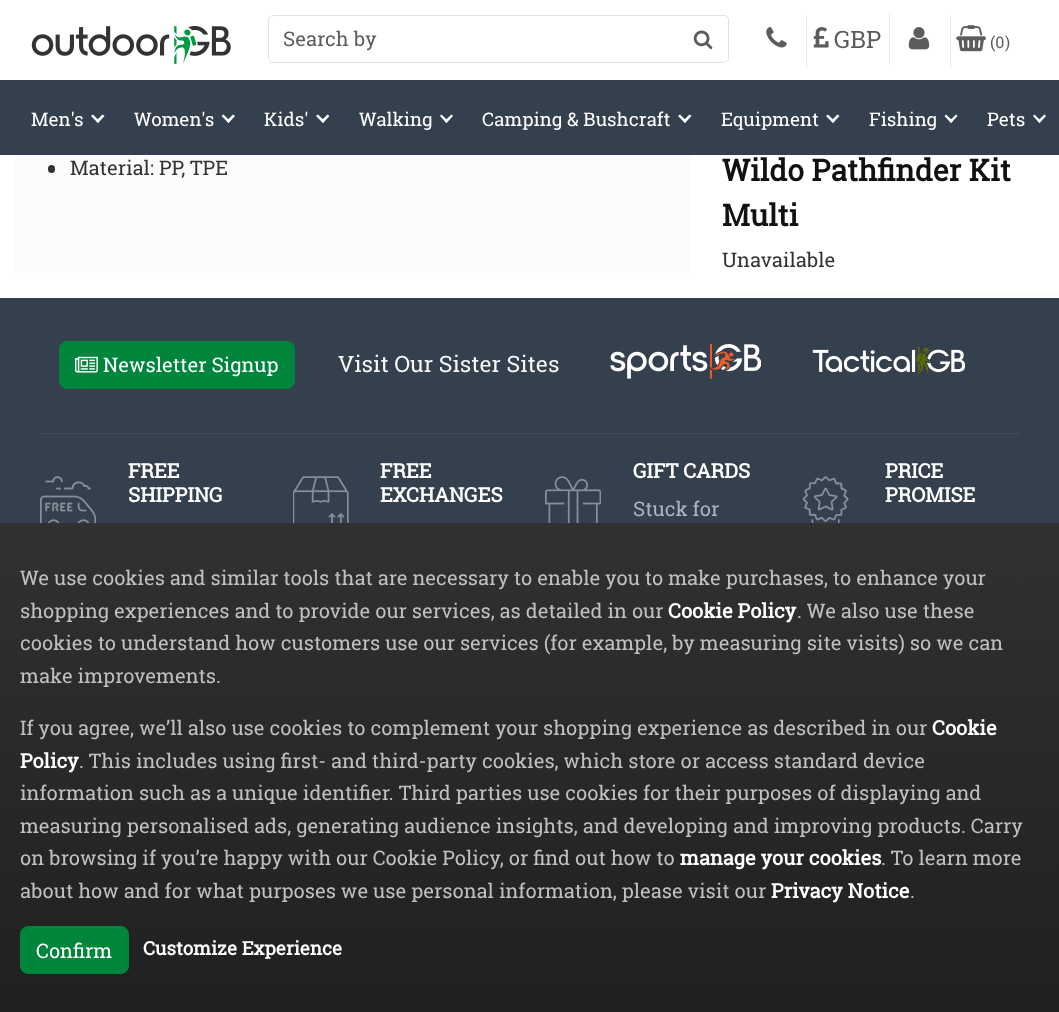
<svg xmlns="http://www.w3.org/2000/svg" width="1059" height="1012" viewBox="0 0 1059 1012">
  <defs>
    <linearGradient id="g1" gradientUnits="userSpaceOnUse" x1="530" y1="522" x2="530" y2="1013"><stop offset="0" stop-color="#313131"/><stop offset="1" stop-color="#202020"/></linearGradient>
  </defs>
  <rect width="100%" height="100%" fill="#fff"/>
  <image x="31" y="25" width="200" height="39" href="img/1.png"/>
  <rect x="268.5" y="15.5" width="460" height="47" rx="4.5" fill="none" stroke="#dee2e6"/>
  <image x="693" y="30" width="20" height="20" href="img/2.png"/>
  <path d="M806 15h1v53H806z" fill="#ebebeb"/>
  <image x="766" y="27" width="21" height="21" href="img/3.png"/>
  <path d="M889 13h1v52H889z" fill="#ebebeb"/>
  <image x="813" y="27" width="16" height="21" href="img/4.png"/>
  <path d="M950 15h1v53H950z" fill="#ebebeb"/>
  <image x="908" y="27" width="22" height="23" href="img/5.png"/>
  <image x="956" y="25" width="30" height="27" href="img/6.png"/>
  <path d="M0 80h1059v75H0z" fill="#35404f"/>
  <path d="M104.5 116L98 123L96 121L102.5 114.5Z" fill="#fff"/>
  <path d="M99.5 121L98 123L91 116L93 114.5Z" fill="#fff"/>
  <path d="M235 116L228.5 123L226.5 121L233 114.5Z" fill="#fff"/>
  <path d="M230 121L228.5 123L221.5 116L223.5 114.5Z" fill="#fff"/>
  <path d="M329.5 116L323 123L321 121L327.5 114.5Z" fill="#fff"/>
  <path d="M324.5 121L323 123L316 116L318 114.5Z" fill="#fff"/>
  <path d="M453 116L446.5 123L444.5 121L451.5 114.5Z" fill="#fff"/>
  <path d="M448 121L446.5 123L440 116L441.5 114.5Z" fill="#fff"/>
  <path d="M691.5 116L685 123L683 121L689.5 114.5Z" fill="#fff"/>
  <path d="M686.5 121L685 123L678 116L680 114.5Z" fill="#fff"/>
  <path d="M839.5 116L833 123L831 121L837.5 114.5Z" fill="#fff"/>
  <path d="M834.5 121L833 123L826 116L828 114.5Z" fill="#fff"/>
  <path d="M957.5 116L951 123L949.5 121L956 114.5Z" fill="#fff"/>
  <path d="M953 121L951 123L944.5 116L946 114.5Z" fill="#fff"/>
  <path d="M1046 116L1039.5 123L1037.5 121L1044.5 114.5Z" fill="#fff"/>
  <path d="M1041 121L1039.5 123L1033 116L1034.5 114.5Z" fill="#fff"/>
  <path d="M15 155h676v118H15z" fill="#fbfbfb"/>
  <rect x="48" y="165" width="7" height="8" rx="3.5" fill="#333"/>
  <path d="M721 294h338v1H721z" fill="#f9f9f9"/>
  <path d="M0 298h1059v225H0z" fill="#35404f"/>
  <rect x="59.5" y="341.5" width="235" height="47" rx="7.5" fill="#00853c" stroke="#00853c"/>
  <image x="75" y="356" width="23" height="17" href="img/7.png"/>
  <image x="610" y="344" width="151" height="35" href="img/8.png"/>
  <image x="812" y="347" width="154" height="29" href="img/9.png"/>
  <path d="M40 433h980v1H40z" fill="#414b59"/>
  <image x="40" y="476" width="56" height="47" href="img/10.png"/>
  <image x="293" y="476" width="56" height="47" href="img/11.png"/>
  <image x="545" y="476" width="56" height="47" href="img/12.png"/>
  <image x="802" y="476" width="47" height="47" href="img/13.png"/>
  <path d="M0 523h1059v489H0z" fill="url(#g1)"/>
  <rect x="20.5" y="926.5" width="108" height="47" rx="7.5" fill="#00853c" stroke="#00853c"/>
  <text x="283" y="46" font-family="Roboto Slab" font-size="20" fill="#5c5c5c">Search by</text>
  <text x="834" y="48" font-family="Roboto Slab" font-size="24" fill="#5c5c5c">GBP</text>
  <g font-family="Roboto Slab" font-size="16" fill="#5c5c5c">
    <text x="990" y="48">(0</text>
    <text x="1005" y="48">)</text>
  </g>
  <g font-family="Roboto Slab" font-size="18.75" fill="#fff">
    <text x="31" y="126">Men's</text>
    <text x="134" y="126">Women's</text>
    <text x="264" y="126">Kids'</text>
    <text x="359" y="126">Walking</text>
    <text x="482" y="126">Camping &amp; Bushcraft</text>
    <text x="721" y="126">Equipment</text>
    <text x="869" y="126">Fishing</text>
    <text x="987" y="126">Pets</text>
  </g>
  <text x="70" y="175" font-family="Roboto Slab" font-size="20" fill="#333">Material: PP, TPE</text>
  <g font-family="Roboto Slab" font-size="30" font-weight="bold" fill="#111">
    <text x="722" y="181">Wildo Pathfinder Kit</text>
    <text x="722" y="226">Multi</text>
  </g>
  <text x="722" y="267" font-family="Roboto Slab" font-size="20" fill="#333">Unavailable</text>
  <text x="103" y="372" font-family="Roboto Slab" font-size="20" fill="#fff">Newsletter Signup</text>
  <text x="338" y="372" font-family="Roboto Slab" font-size="22.5" fill="#f7f7f7">Visit Our Sister Sites</text>
  <g font-family="Roboto Slab" font-size="20" font-weight="bold" fill="#fff">
    <text x="128" y="478">FREE</text>
    <text x="128" y="502">SHIPPING</text>
    <text x="380" y="478">FREE</text>
    <text x="380" y="502">EXCHANGES</text>
    <text x="633" y="478">GIFT CARDS</text>
  </g>
  <text x="633" y="516" font-family="Roboto Slab" font-size="20" fill="#afb4bc">Stuck for</text>
  <g font-family="Roboto Slab" font-size="20" font-weight="bold" fill="#fff">
    <text x="885" y="478">PRICE</text>
    <text x="885" y="502">PROMISE</text>
  </g>
  <g font-family="Roboto Slab" font-size="20" fill="#c0c0c0">
    <text x="20" y="585">We use cookies and similar tools that are necessary to enable you to make purchases, to enhance your</text>
    <text x="20" y="618">shopping experiences and to provide our services, as detailed in our</text>
  </g>
  <text x="668" y="618" font-family="Roboto Slab" font-size="20" font-weight="bold" fill="#fff">Cookie Policy</text>
  <g font-family="Roboto Slab" font-size="20" fill="#c0c0c0">
    <text x="797" y="618">. We also use these</text>
    <text x="20" y="650">cookies to understand how customers use our services (for example, by measuring site visits) so we can</text>
    <text x="20" y="683">make improvements.</text>
    <text x="20" y="735">If you agree, we’ll also use cookies to complement your shopping experience as described in our</text>
  </g>
  <g font-family="Roboto Slab" font-size="20" font-weight="bold" fill="#fff">
    <text x="932" y="735">Cookie</text>
    <text x="20" y="768">Policy</text>
  </g>
  <g font-family="Roboto Slab" font-size="20" fill="#c0c0c0">
    <text x="79" y="768">. This includes using first- and third-party cookies, which store or access standard device</text>
    <text x="20" y="800">information such as a unique identifier. Third parties use cookies for their purposes of displaying and</text>
    <text x="20" y="833">measuring personalised ads, generating audience insights, and developing and improving products. Carry</text>
    <text x="20" y="865">on browsing if you’re happy with our Cookie Policy, or find out how to</text>
  </g>
  <text x="680" y="865" font-family="Roboto Slab" font-size="20" font-weight="bold" fill="#fff">manage your cookies</text>
  <g font-family="Roboto Slab" font-size="20" fill="#c0c0c0">
    <text x="881" y="865">. To learn more</text>
    <text x="20" y="898">about how and for what purposes we use personal information, please visit our</text>
  </g>
  <text x="771" y="898" font-family="Roboto Slab" font-size="20" font-weight="bold" fill="#fff">Privacy Notice</text>
  <text x="910" y="898" font-family="Roboto Slab" font-size="20" fill="#c0c0c0">.</text>
  <text x="36" y="958" font-family="Roboto Slab" font-size="20" fill="#fff">Confirm</text>
  <text x="143" y="955" font-family="Roboto Slab" font-size="18.75" font-weight="bold" fill="#fff">Customize Experience</text>
</svg>
